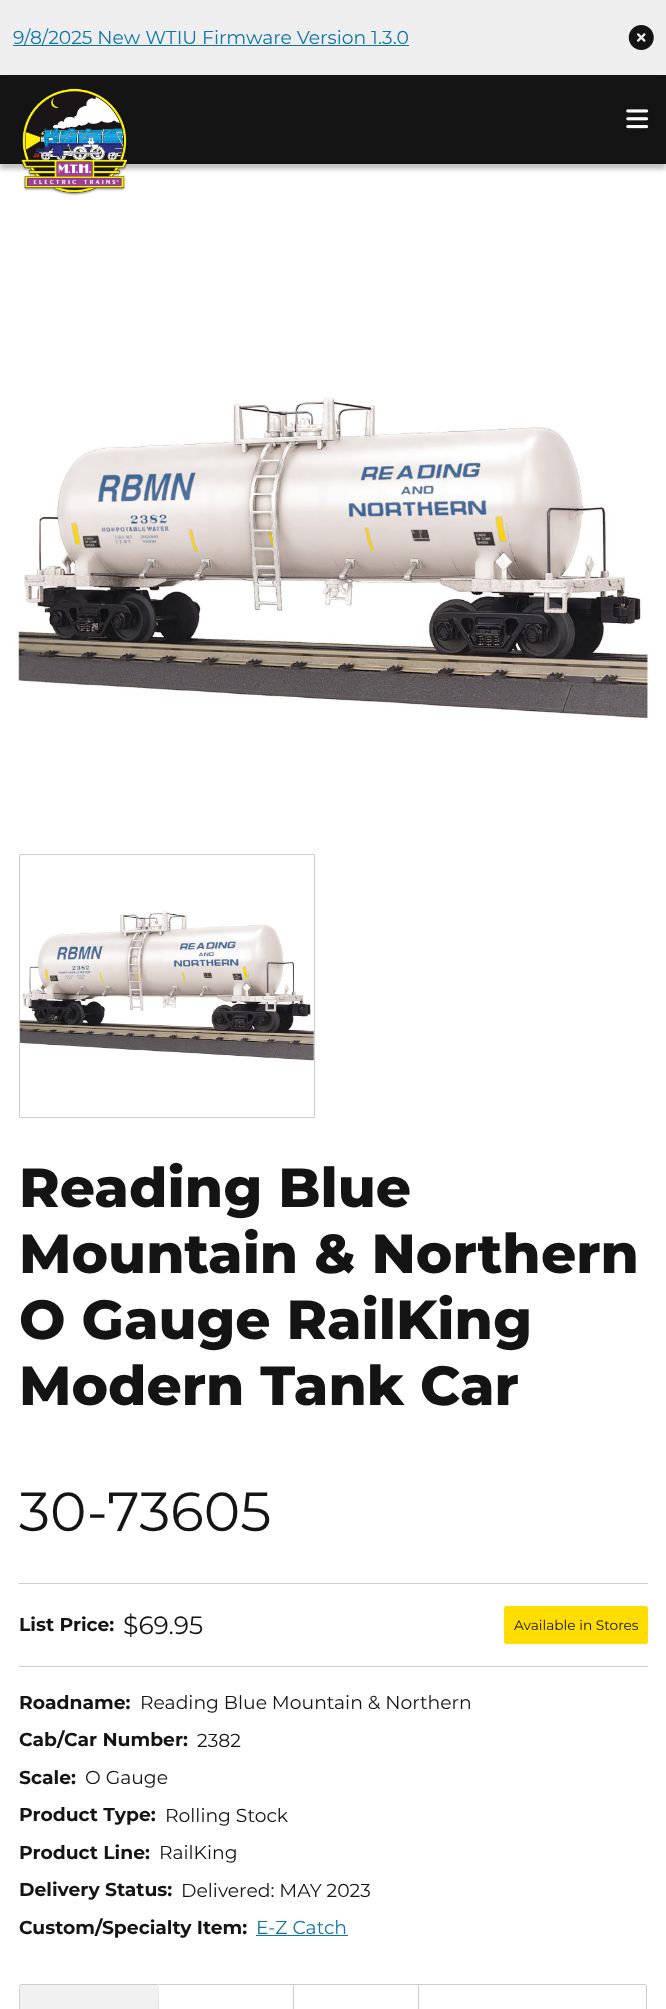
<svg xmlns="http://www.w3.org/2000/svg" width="666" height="2009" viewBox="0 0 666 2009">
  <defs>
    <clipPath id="clip1"><path d="M19 1984h629v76H19z"/></clipPath>
  </defs>
  <rect width="100%" height="100%" fill="#fff"/>
  <path d="M0 0h666v75H0z" fill="#eee"/>
  <path d="M13 45h396v1H13z" fill="#1076a8"/>
  <image x="628" y="25" width="26" height="25" href="img/1.png"/>
  <path d="M0 80h666v89H0z" fill="#00000040" filter="blur(2.5px)"/>
  <path d="M0 75h666v89H0z" fill="#141414"/>
  <image x="21" y="88" width="107" height="108" href="img/2.png"/>
  <image x="626" y="109" width="23" height="20" href="img/3.png"/>
  <image x="18" y="398" width="630" height="321" href="img/4.png"/>
  <path d="M19.5 854.5h295v263H19.5z" fill="none" stroke="#cdcdcd"/>
  <image x="20" y="911" width="294" height="150" href="img/5.png"/>
  <path d="M19 1583h629v1H19z" fill="#cdcdcd"/>
  <rect x="504" y="1606" width="144" height="38" rx="2.5" fill="#fd0"/>
  <path d="M19 1666h629v1H19z" fill="#cdcdcd"/>
  <path d="M256 1935h92v1H256z" fill="#1076a8"/>
  <path d="M21.5 1984H159V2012H19V1986.5C19 1985 20 1984 21.5 1984Z" fill="#f1f1f1"/>
  <path d="M21 1984L20 1985V1986L21 1985H158V1984Z" fill="#cdcdcd"/>
  <path d="M159 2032L157 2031H158V1985V1984Z" fill="#cdcdcd"/>
  <g clip-path="url(#clip1)">
    <path d="M20 1985C18 1986 19 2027 19 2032L20 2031V1986Z" fill="#cdcdcd"/>
  </g>
  <path d="M159 1984h487v1H159z" fill="#cdcdcd"/>
  <path d="M293 1984h1v25H293z" fill="#cdcdcd"/>
  <path d="M418 1984h1v25H418z" fill="#cdcdcd"/>
  <path d="M646 1985h1v24H646z" fill="#cdcdcd"/>
  <text x="13" y="44" font-family="Montserrat" font-size="18.75" fill="#1076a8">9/8/2025 New WTIU Firmware Version 1.3.0</text>
  <g font-family="Montserrat" font-size="55" font-weight="800" fill="#141414">
    <text x="19" y="1207">Reading Blue</text>
    <text x="19" y="1273">Mountain &amp; Northern</text>
    <text x="19" y="1339">O Gauge RailKing</text>
    <text x="19" y="1405">Modern Tank Car</text>
  </g>
  <text x="19" y="1531" font-family="Montserrat" font-size="55" fill="#141414">30-73605</text>
  <text x="19" y="1631" font-family="Montserrat" font-size="18.75" font-weight="bold" fill="#141414">List Price:</text>
  <text x="123" y="1634" font-family="Montserrat" font-size="25" fill="#141414">$69.95</text>
  <text x="514" y="1630" font-family="Montserrat" font-size="13.75" fill="#141414">Available in Stores</text>
  <text x="19" y="1709" font-family="Montserrat" font-size="18.75" font-weight="bold" fill="#141414">Roadname:</text>
  <text x="140" y="1709" font-family="Montserrat" font-size="18.75" fill="#141414">Reading Blue Mountain &amp; Northern</text>
  <text x="19" y="1746" font-family="Montserrat" font-size="18.75" font-weight="bold" fill="#141414">Cab/Car Number:</text>
  <text x="197" y="1747" font-family="Montserrat" font-size="18.75" fill="#141414">2382</text>
  <text x="19" y="1784" font-family="Montserrat" font-size="18.75" font-weight="bold" fill="#141414">Scale:</text>
  <text x="85" y="1784" font-family="Montserrat" font-size="18.75" fill="#141414">O Gauge</text>
  <text x="19" y="1821" font-family="Montserrat" font-size="18.75" font-weight="bold" fill="#141414">Product Type:</text>
  <text x="165" y="1822" font-family="Montserrat" font-size="18.75" fill="#141414">Rolling Stock</text>
  <text x="19" y="1859" font-family="Montserrat" font-size="18.75" font-weight="bold" fill="#141414">Product Line:</text>
  <text x="159" y="1859" font-family="Montserrat" font-size="18.75" fill="#141414">RailKing</text>
  <text x="19" y="1896" font-family="Montserrat" font-size="18.75" font-weight="bold" fill="#141414">Delivery Status:</text>
  <text x="181" y="1897" font-family="Montserrat" font-size="18.75" fill="#141414">Delivered: MAY 2023</text>
  <text x="19" y="1934" font-family="Montserrat" font-size="18.75" font-weight="bold" fill="#141414">Custom/Specialty Item:</text>
  <text x="256" y="1934" font-family="Montserrat" font-size="18.75" fill="#1076a8">E-Z Catch</text>
</svg>
